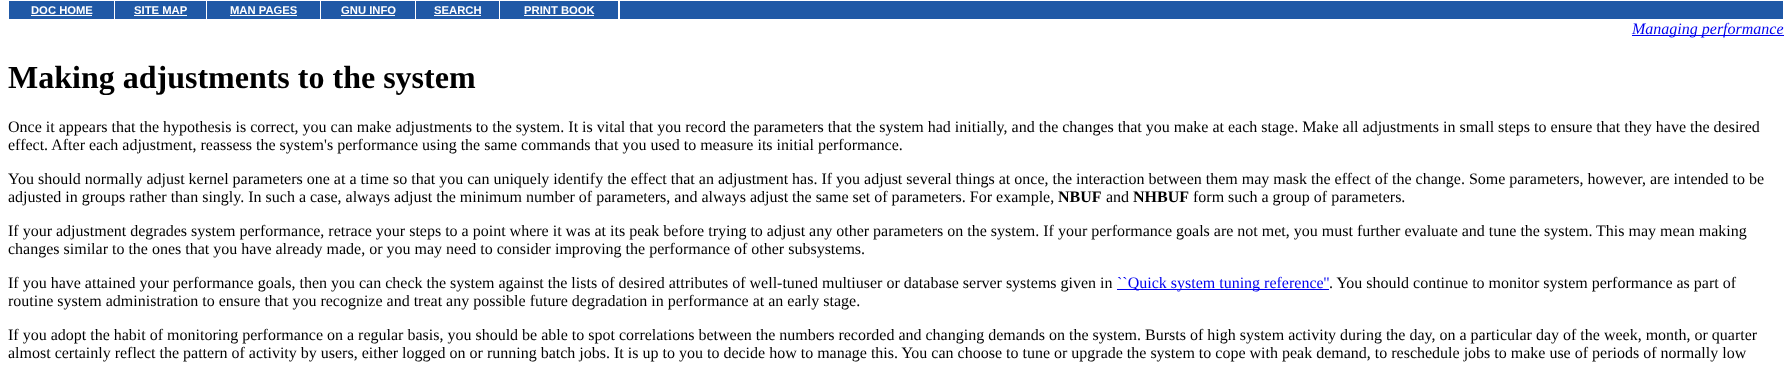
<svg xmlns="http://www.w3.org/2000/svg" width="1792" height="372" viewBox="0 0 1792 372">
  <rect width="100%" height="100%" fill="#fff"/>
  <path d="M9 1h105v18H9z" fill="#2059a6"/>
  <path d="M31 15h61v1H31z" fill="#fff"/>
  <path d="M115 1h91v18H115z" fill="#2059a6"/>
  <path d="M134 15h53v1H134z" fill="#fff"/>
  <path d="M207 1h113v18H207z" fill="#2059a6"/>
  <path d="M230 15h67v1H230z" fill="#fff"/>
  <path d="M321 1h94v18H321z" fill="#2059a6"/>
  <path d="M341 15h54v1H341z" fill="#fff"/>
  <path d="M416 1h83v18H416z" fill="#2059a6"/>
  <path d="M434 15h47v1H434z" fill="#fff"/>
  <path d="M500 1h118v18H500z" fill="#2059a6"/>
  <path d="M524 15h70v1H524z" fill="#fff"/>
  <path d="M620 1h1163v18H620z" fill="#2059a6"/>
  <path d="M1632 35h152v1H1632z" fill="#00e"/>
  <path d="M1117 289h212v1H1117z" fill="#00e"/>
  <g font-family="Liberation Sans" font-size="11.25" font-weight="bold" fill="#fff">
    <text x="31" y="14">DOC HOME</text>
    <text x="134" y="14">SITE MAP</text>
    <text x="230" y="14">MAN PAGES</text>
    <text x="341" y="14">GNU INFO</text>
    <text x="434" y="14">SEARCH</text>
    <text x="524" y="14">PRINT BOOK</text>
  </g>
  <text x="1632" y="34" font-family="Liberation Serif" font-size="16" font-style="italic" fill="#00e">Managing performance</text>
  <text x="8" y="88" font-family="Liberation Serif" font-size="32" font-weight="bold" fill="#000">Making adjustments to the system</text>
  <g font-family="Liberation Serif" font-size="16" fill="#000">
    <text x="8" y="132">Once it appears that the hypothesis is correct, you can make adjustments to the system. It is vital that you record the parameters that the system had initially, and the changes that you make at each stage. Make all adjustments in small steps to ensure that they have the desired</text>
    <text x="8" y="150">effect. After each adjustment, reassess the system's performance using the same commands that you used to measure its initial performance.</text>
    <text x="8" y="184">You should normally adjust kernel parameters one at a time so that you can uniquely identify the effect that an adjustment has. If you adjust several things at once, the interaction between them may mask the effect of the change. Some parameters, however, are intended to be</text>
    <text x="8" y="202">adjusted in groups rather than singly. In such a case, always adjust the minimum number of parameters, and always adjust the same set of parameters. For example,</text>
  </g>
  <text x="1058" y="202" font-family="Liberation Serif" font-size="16" font-weight="bold" fill="#000">NBUF</text>
  <text x="1106" y="202" font-family="Liberation Serif" font-size="16" fill="#000">and</text>
  <text x="1133" y="202" font-family="Liberation Serif" font-size="16" font-weight="bold" fill="#000">NHBUF</text>
  <g font-family="Liberation Serif" font-size="16" fill="#000">
    <text x="1193" y="202">form such a group of parameters.</text>
    <text x="8" y="236">If your adjustment degrades system performance, retrace your steps to a point where it was at its peak before trying to adjust any other parameters on the system. If your performance goals are not met, you must further evaluate and tune the system. This may mean making</text>
    <text x="8" y="254">changes similar to the ones that you have already made, or you may need to consider improving the performance of other subsystems.</text>
    <text x="8" y="288">If you have attained your performance goals, then you can check the system against the lists of desired attributes of well-tuned multiuser or database server systems given in</text>
  </g>
  <text x="1117" y="288" font-family="Liberation Serif" font-size="16" fill="#00e">``Quick system tuning reference''</text>
  <g font-family="Liberation Serif" font-size="16" fill="#000">
    <text x="1329" y="288">. You should continue to monitor system performance as part of</text>
    <text x="8" y="306">routine system administration to ensure that you recognize and treat any possible future degradation in performance at an early stage.</text>
    <text x="8" y="340">If you adopt the habit of monitoring performance on a regular basis, you should be able to spot correlations between the numbers recorded and changing demands on the system. Bursts of high system activity during the day, on a particular day of the week, month, or quarter</text>
    <text x="8" y="358">almost certainly reflect the pattern of activity by users, either logged on or running batch jobs. It is up to you to decide how to manage this. You can choose to tune or upgrade the system to cope with peak demand, to reschedule jobs to make use of periods of normally low</text>
  </g>
</svg>
